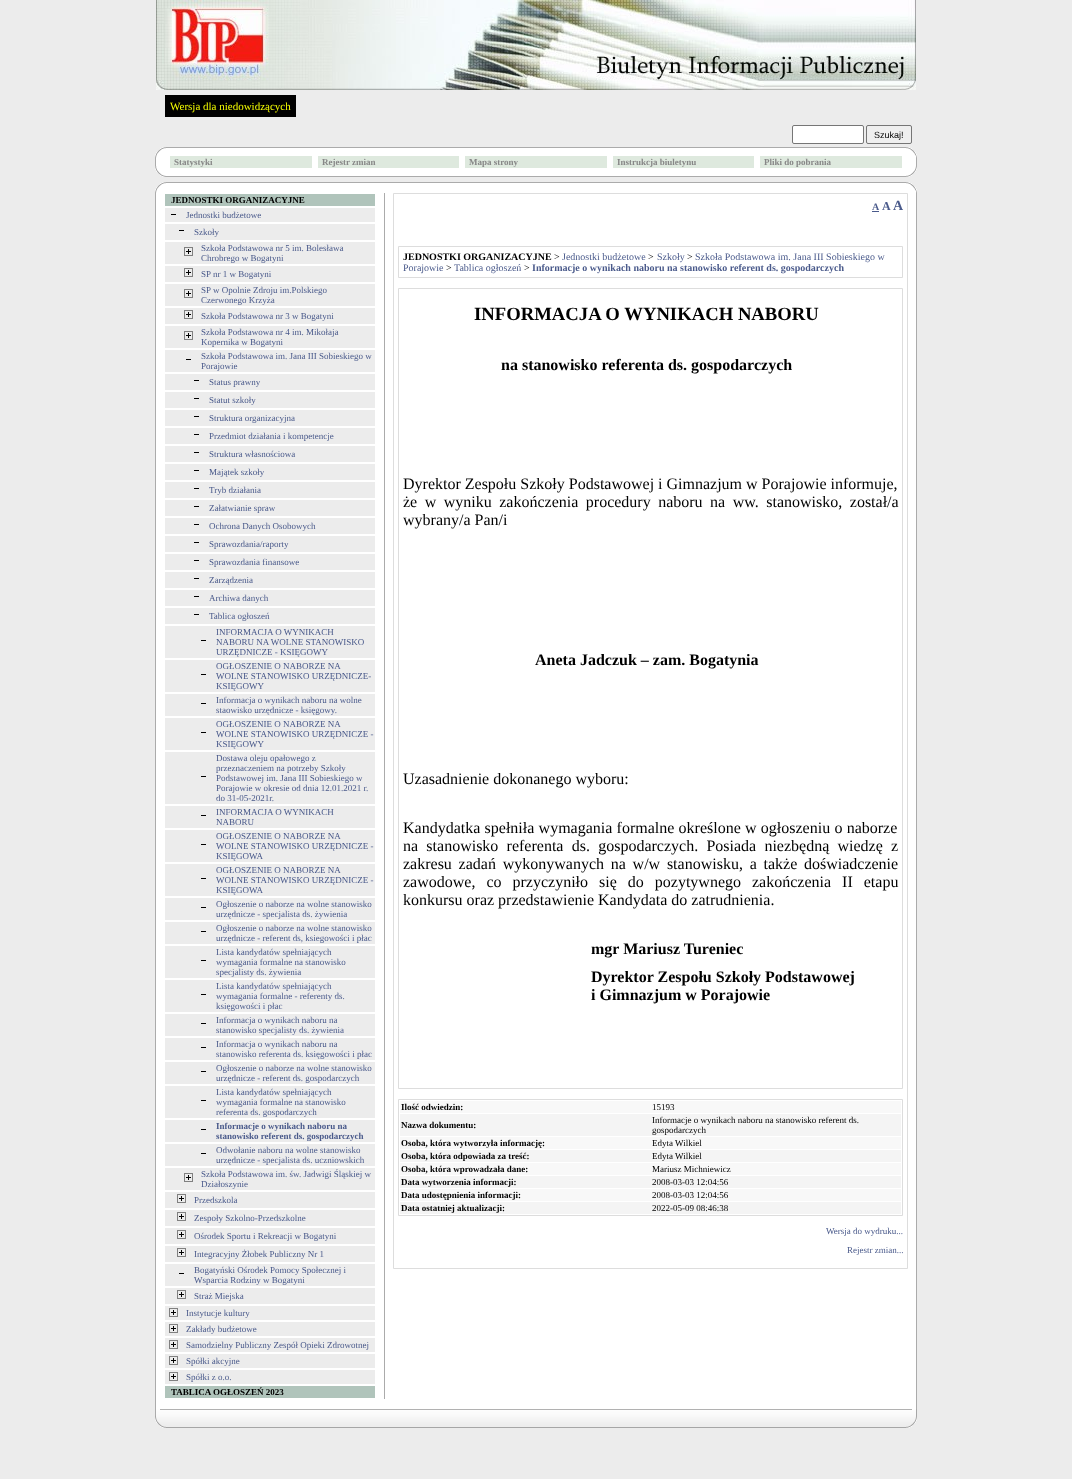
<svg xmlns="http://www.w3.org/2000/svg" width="1072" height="1479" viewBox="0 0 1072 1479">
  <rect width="100%" height="100%" fill="#ececec"/>
  <image x="156" y="0" width="760" height="90" href="img/1.png"/>
  <path d="M165 95h131v22H165z" fill="#000"/>
  <rect x="792.5" y="125.5" width="71" height="18" rx="1.5" fill="#fff" stroke="#767676"/>
  <rect x="866.5" y="125.5" width="45" height="18" rx="1.5" fill="#efefef" stroke="#767676"/>
  <path d="M155 158h11v8H155z" fill="#fff"/>
  <path d="M155 158h1v8H155z" fill="#ababab"/>
  <path d="M906 158h11v8H906z" fill="#fff"/>
  <path d="M916 158h1v8H916z" fill="#ababab"/>
  <image x="155" y="147" width="11" height="11" href="img/2.png"/>
  <image x="906" y="147" width="11" height="11" href="img/3.png"/>
  <path d="M166 148h740v28H166z" fill="#fff"/>
  <path d="M166 147h740v1H166z" fill="#ababab"/>
  <path d="M166 176h740v1H166z" fill="#ababab"/>
  <path d="M170 156h142v12H170z" fill="#dee9de"/>
  <path d="M318 156h141v12H318z" fill="#dee9de"/>
  <path d="M465 156h142v12H465z" fill="#dee9de"/>
  <path d="M613 156h141v12H613z" fill="#dee9de"/>
  <path d="M760 156h142v12H760z" fill="#dee9de"/>
  <image x="155" y="166" width="11" height="11" href="img/4.png"/>
  <image x="906" y="166" width="11" height="11" href="img/5.png"/>
  <image x="155" y="182" width="11" height="11" href="img/2.png"/>
  <path d="M166 183h740v10H166z" fill="#fff"/>
  <path d="M166 182h740v1H166z" fill="#ababab"/>
  <image x="906" y="182" width="11" height="11" href="img/3.png"/>
  <path d="M156 193h760v1216H156z" fill="#fff"/>
  <path d="M916 193h1v1216H916z" fill="#ababab"/>
  <path d="M155 193h1v1216H155z" fill="#ababab"/>
  <path d="M165 194h210v12H165z" fill="#b0c4bb"/>
  <path d="M165 208h210v14H165z" fill="#ececec"/>
  <path d="M171 214h5v1H171z" fill="#000"/>
  <path d="M165 224h210v16H165z" fill="#ececec"/>
  <path d="M179 230h5v1H179z" fill="#000"/>
  <path d="M165 242h210v22H165z" fill="#ececec"/>
  <image x="184" y="247" width="9" height="9" href="img/6.png"/>
  <path d="M165 266h210v16H165z" fill="#ececec"/>
  <image x="184" y="268" width="9" height="9" href="img/6.png"/>
  <path d="M165 284h210v22H165z" fill="#ececec"/>
  <image x="184" y="289" width="9" height="9" href="img/6.png"/>
  <path d="M165 308h210v16H165z" fill="#ececec"/>
  <image x="184" y="310" width="9" height="9" href="img/6.png"/>
  <path d="M165 326h210v22H165z" fill="#ececec"/>
  <image x="184" y="331" width="9" height="9" href="img/6.png"/>
  <path d="M165 350h210v22H165z" fill="#ececec"/>
  <path d="M186 359h5v1H186z" fill="#000"/>
  <path d="M165 374h210v16H165z" fill="#ececec"/>
  <path d="M194 380h5v1H194z" fill="#000"/>
  <path d="M165 392h210v16H165z" fill="#ececec"/>
  <path d="M194 398h5v1H194z" fill="#000"/>
  <path d="M165 410h210v16H165z" fill="#ececec"/>
  <path d="M194 416h5v1H194z" fill="#000"/>
  <path d="M165 428h210v16H165z" fill="#ececec"/>
  <path d="M194 434h5v1H194z" fill="#000"/>
  <path d="M165 446h210v16H165z" fill="#ececec"/>
  <path d="M194 452h5v1H194z" fill="#000"/>
  <path d="M165 464h210v16H165z" fill="#ececec"/>
  <path d="M194 470h5v1H194z" fill="#000"/>
  <path d="M165 482h210v16H165z" fill="#ececec"/>
  <path d="M194 488h5v1H194z" fill="#000"/>
  <path d="M165 500h210v16H165z" fill="#ececec"/>
  <path d="M194 506h5v1H194z" fill="#000"/>
  <path d="M165 518h210v16H165z" fill="#ececec"/>
  <path d="M194 524h5v1H194z" fill="#000"/>
  <path d="M165 536h210v16H165z" fill="#ececec"/>
  <path d="M194 542h5v1H194z" fill="#000"/>
  <path d="M165 554h210v16H165z" fill="#ececec"/>
  <path d="M194 560h5v1H194z" fill="#000"/>
  <path d="M165 572h210v16H165z" fill="#ececec"/>
  <path d="M194 578h5v1H194z" fill="#000"/>
  <path d="M165 590h210v16H165z" fill="#ececec"/>
  <path d="M194 596h5v1H194z" fill="#000"/>
  <path d="M165 608h210v16H165z" fill="#ececec"/>
  <path d="M194 614h5v1H194z" fill="#000"/>
  <path d="M165 626h210v32H165z" fill="#ececec"/>
  <path d="M201 640h5v1H201z" fill="#000"/>
  <path d="M165 660h210v32H165z" fill="#ececec"/>
  <path d="M201 674h5v1H201z" fill="#000"/>
  <path d="M165 694h210v22H165z" fill="#ececec"/>
  <path d="M201 703h5v1H201z" fill="#000"/>
  <path d="M165 718h210v32H165z" fill="#ececec"/>
  <path d="M201 732h5v1H201z" fill="#000"/>
  <path d="M165 752h210v52H165z" fill="#ececec"/>
  <path d="M201 776h5v1H201z" fill="#000"/>
  <path d="M165 806h210v22H165z" fill="#ececec"/>
  <path d="M201 815h5v1H201z" fill="#000"/>
  <path d="M165 830h210v32H165z" fill="#ececec"/>
  <path d="M201 844h5v1H201z" fill="#000"/>
  <path d="M165 864h210v32H165z" fill="#ececec"/>
  <path d="M201 878h5v1H201z" fill="#000"/>
  <path d="M165 898h210v22H165z" fill="#ececec"/>
  <path d="M201 907h5v1H201z" fill="#000"/>
  <path d="M165 922h210v22H165z" fill="#ececec"/>
  <path d="M201 931h5v1H201z" fill="#000"/>
  <path d="M165 946h210v32H165z" fill="#ececec"/>
  <path d="M201 960h5v1H201z" fill="#000"/>
  <path d="M165 980h210v32H165z" fill="#ececec"/>
  <path d="M201 994h5v1H201z" fill="#000"/>
  <path d="M165 1014h210v22H165z" fill="#ececec"/>
  <path d="M201 1023h5v1H201z" fill="#000"/>
  <path d="M165 1038h210v22H165z" fill="#ececec"/>
  <path d="M201 1047h5v1H201z" fill="#000"/>
  <path d="M165 1062h210v22H165z" fill="#ececec"/>
  <path d="M201 1071h5v1H201z" fill="#000"/>
  <path d="M165 1086h210v32H165z" fill="#ececec"/>
  <path d="M201 1100h5v1H201z" fill="#000"/>
  <path d="M165 1120h210v22H165z" fill="#ececec"/>
  <path d="M201 1129h5v1H201z" fill="#000"/>
  <path d="M165 1144h210v22H165z" fill="#ececec"/>
  <path d="M201 1153h5v1H201z" fill="#000"/>
  <path d="M165 1168h210v22H165z" fill="#ececec"/>
  <image x="184" y="1173" width="9" height="9" href="img/6.png"/>
  <path d="M165 1192h210v16H165z" fill="#ececec"/>
  <image x="177" y="1194" width="9" height="9" href="img/6.png"/>
  <path d="M165 1210h210v16H165z" fill="#ececec"/>
  <image x="177" y="1212" width="9" height="9" href="img/6.png"/>
  <path d="M165 1228h210v16H165z" fill="#ececec"/>
  <image x="177" y="1230" width="9" height="9" href="img/6.png"/>
  <path d="M165 1246h210v16H165z" fill="#ececec"/>
  <image x="177" y="1248" width="9" height="9" href="img/6.png"/>
  <path d="M165 1264h210v22H165z" fill="#ececec"/>
  <path d="M179 1273h5v1H179z" fill="#000"/>
  <path d="M165 1288h210v16H165z" fill="#ececec"/>
  <image x="177" y="1290" width="9" height="9" href="img/6.png"/>
  <path d="M165 1306h210v14H165z" fill="#ececec"/>
  <image x="169" y="1308" width="9" height="9" href="img/6.png"/>
  <path d="M165 1322h210v14H165z" fill="#ececec"/>
  <image x="169" y="1324" width="9" height="9" href="img/6.png"/>
  <path d="M165 1338h210v14H165z" fill="#ececec"/>
  <image x="169" y="1340" width="9" height="9" href="img/6.png"/>
  <path d="M165 1354h210v14H165z" fill="#ececec"/>
  <image x="169" y="1356" width="9" height="9" href="img/6.png"/>
  <path d="M165 1370h210v14H165z" fill="#ececec"/>
  <image x="169" y="1372" width="9" height="9" href="img/6.png"/>
  <path d="M165 1386h210v12H165z" fill="#b0c4bb"/>
  <path d="M384 193h1v1206H384z" fill="#ababab"/>
  <path d="M393.5 193.5h514v1075H393.5z" fill="none" stroke="#ddd"/>
  <path d="M872 211h7v1H872z" fill="#4a5a8b"/>
  <path d="M398.5 246.5h504v31H398.5z" fill="none" stroke="#ddd"/>
  <path d="M398.5 288.5h504v800H398.5z" fill="none" stroke="#ddd"/>
  <path d="M398.5 1099.5h504v116H398.5z" fill="none" stroke="#ddd"/>
  <path d="M400 1101h501v12H400z" fill="#f8f8f8"/>
  <path d="M400 1114h501v22H400z" fill="#f4f4f4"/>
  <path d="M400 1137h501v12H400z" fill="#f8f8f8"/>
  <path d="M400 1150h501v12H400z" fill="#f4f4f4"/>
  <path d="M400 1163h501v12H400z" fill="#f8f8f8"/>
  <path d="M400 1176h501v12H400z" fill="#f4f4f4"/>
  <path d="M400 1189h501v12H400z" fill="#f8f8f8"/>
  <path d="M400 1202h501v12H400z" fill="#f4f4f4"/>
  <image x="155" y="1409" width="11" height="19" href="img/7.png"/>
  <image x="166" y="1409" width="740" height="19" href="img/8.png"/>
  <image x="906" y="1409" width="11" height="19" href="img/9.png"/>
  <text x="170" y="110" font-family="Liberation Serif" font-size="11" fill="#f6ff00">Wersja dla niedowidzących</text>
  <text x="874" y="138" font-family="Liberation Sans" font-size="9" fill="#000">Szukaj!</text>
  <g font-family="Liberation Serif" font-size="9" font-weight="bold" fill="#878787">
    <text x="174" y="165">Statystyki</text>
    <text x="322" y="165">Rejestr zmian</text>
    <text x="469" y="165">Mapa strony</text>
    <text x="617" y="165">Instrukcja biuletynu</text>
    <text x="764" y="165">Pliki do pobrania</text>
  </g>
  <text x="171" y="203" font-family="Liberation Serif" font-size="9" font-weight="bold" fill="#000">JEDNOSTKI ORGANIZACYJNE</text>
  <g font-family="Liberation Serif" font-size="9" fill="#4a5a8b">
    <text x="186" y="218">Jednostki budżetowe</text>
    <text x="194" y="235">Szkoły</text>
    <text x="201" y="251">Szkoła Podstawowa nr 5 im. Bolesława</text>
    <text x="201" y="261">Chrobrego w Bogatyni</text>
    <text x="201" y="277">SP nr 1 w Bogatyni</text>
    <text x="201" y="293">SP w Opolnie Zdroju im.Polskiego</text>
    <text x="201" y="303">Czerwonego Krzyża</text>
    <text x="201" y="319">Szkoła Podstawowa nr 3 w Bogatyni</text>
    <text x="201" y="335">Szkoła Podstawowa nr 4 im. Mikołaja</text>
    <text x="201" y="345">Kopernika w Bogatyni</text>
    <text x="201" y="359">Szkoła Podstawowa im. Jana III Sobieskiego w</text>
    <text x="201" y="369">Porajowie</text>
    <text x="209" y="385">Status prawny</text>
    <text x="209" y="403">Statut szkoły</text>
    <text x="209" y="421">Struktura organizacyjna</text>
    <text x="209" y="439">Przedmiot działania i kompetencje</text>
    <text x="209" y="457">Struktura własnościowa</text>
    <text x="209" y="475">Majątek szkoły</text>
    <text x="209" y="493">Tryb działania</text>
    <text x="209" y="511">Załatwianie spraw</text>
    <text x="209" y="529">Ochrona Danych Osobowych</text>
    <text x="209" y="547">Sprawozdania/raporty</text>
    <text x="209" y="565">Sprawozdania finansowe</text>
    <text x="209" y="583">Zarządzenia</text>
    <text x="209" y="601">Archiwa danych</text>
    <text x="209" y="619">Tablica ogłoszeń</text>
    <text x="216" y="635">INFORMACJA O WYNIKACH</text>
    <text x="216" y="645">NABORU NA WOLNE STANOWISKO</text>
    <text x="216" y="655">URZĘDNICZE - KSIĘGOWY</text>
    <text x="216" y="669">OGŁOSZENIE O NABORZE NA</text>
    <text x="216" y="679">WOLNE STANOWISKO URZĘDNICZE-</text>
    <text x="216" y="689">KSIĘGOWY</text>
    <text x="216" y="703">Informacja o wynikach naboru na wolne</text>
    <text x="216" y="713">staowisko urzędnicze - księgowy.</text>
    <text x="216" y="727">OGŁOSZENIE O NABORZE NA</text>
    <text x="216" y="737">WOLNE STANOWISKO URZĘDNICZE -</text>
    <text x="216" y="747">KSIĘGOWY</text>
    <text x="216" y="761">Dostawa oleju opałowego z</text>
    <text x="216" y="771">przeznaczeniem na potrzeby Szkoły</text>
    <text x="216" y="781">Podstawowej im. Jana III Sobieskiego w</text>
    <text x="216" y="791">Porajowie w okresie od dnia 12.01.2021 r.</text>
    <text x="216" y="801">do 31-05-2021r.</text>
    <text x="216" y="815">INFORMACJA O WYNIKACH</text>
    <text x="216" y="825">NABORU</text>
    <text x="216" y="839">OGŁOSZENIE O NABORZE NA</text>
    <text x="216" y="849">WOLNE STANOWISKO URZĘDNICZE -</text>
    <text x="216" y="859">KSIĘGOWA</text>
    <text x="216" y="873">OGŁOSZENIE O NABORZE NA</text>
    <text x="216" y="883">WOLNE STANOWISKO URZĘDNICZE -</text>
    <text x="216" y="893">KSIĘGOWA</text>
    <text x="216" y="907">Ogłoszenie o naborze na wolne stanowisko</text>
    <text x="216" y="917">urzędnicze - specjalista ds. żywienia</text>
    <text x="216" y="931">Ogłoszenie o naborze na wolne stanowisko</text>
    <text x="216" y="941">urzędnicze - referent ds, ksiegowości i płac</text>
    <text x="216" y="955">Lista kandydatów spełniających</text>
    <text x="216" y="965">wymagania formalne na stanowisko</text>
    <text x="216" y="975">specjalisty ds. żywienia</text>
    <text x="216" y="989">Lista kandydatów spełniających</text>
    <text x="216" y="999">wymagania formalne - referenty ds.</text>
    <text x="216" y="1009">księgowości i płac</text>
    <text x="216" y="1023">Informacja o wynikach naboru na</text>
    <text x="216" y="1033">stanowisko specjalisty ds. żywienia</text>
    <text x="216" y="1047">Informacja o wynikach naboru na</text>
    <text x="216" y="1057">stanowisko referenta ds. księgowości i płac</text>
    <text x="216" y="1071">Ogłoszenie o naborze na wolne stanowisko</text>
    <text x="216" y="1081">urzędnicze - referent ds. gospodarczych</text>
    <text x="216" y="1095">Lista kandydatów spełniających</text>
    <text x="216" y="1105">wymagania formalne na stanowisko</text>
    <text x="216" y="1115">referenta ds. gospodarczych</text>
  </g>
  <g font-family="Liberation Serif" font-size="9" font-weight="bold" fill="#4a5a8b">
    <text x="216" y="1129">Informacje o wynikach naboru na</text>
    <text x="216" y="1139">stanowisko referent ds. gospodarczych</text>
  </g>
  <g font-family="Liberation Serif" font-size="9" fill="#4a5a8b">
    <text x="216" y="1153">Odwołanie naboru na wolne stanowisko</text>
    <text x="216" y="1163">urzędnicze - specjalista ds. uczniowskich</text>
    <text x="201" y="1177">Szkoła Podstawowa im. św. Jadwigi Śląskiej w</text>
    <text x="201" y="1187">Działoszynie</text>
    <text x="194" y="1203">Przedszkola</text>
    <text x="194" y="1221">Zespoły Szkolno-Przedszkolne</text>
    <text x="194" y="1239">Ośrodek Sportu i Rekreacji w Bogatyni</text>
    <text x="194" y="1257">Integracyjny Żłobek Publiczny Nr 1</text>
    <text x="194" y="1273">Bogatyński Ośrodek Pomocy Społecznej i</text>
    <text x="194" y="1283">Wsparcia Rodziny w Bogatyni</text>
    <text x="194" y="1299">Straż Miejska</text>
    <text x="186" y="1316">Instytucje kultury</text>
    <text x="186" y="1332">Zakłady budżetowe</text>
    <text x="186" y="1348">Samodzielny Publiczny Zespół Opieki Zdrowotnej</text>
    <text x="186" y="1364">Spółki akcyjne</text>
    <text x="186" y="1380">Spółki z o.o.</text>
  </g>
  <text x="171" y="1395" font-family="Liberation Serif" font-size="9" font-weight="bold" fill="#000">TABLICA OGŁOSZEŃ 2023</text>
  <text x="872" y="210" font-family="Liberation Serif" font-size="10" font-weight="bold" fill="#4a5a8b">A</text>
  <text x="882" y="210" font-family="Liberation Serif" font-size="12" font-weight="bold" fill="#4a5a8b">A</text>
  <text x="893" y="210" font-family="Liberation Serif" font-size="14" font-weight="bold" fill="#4a5a8b">A</text>
  <text x="403" y="260" font-family="Liberation Serif" font-size="10" font-weight="bold" fill="#000">JEDNOSTKI ORGANIZACYJNE</text>
  <text x="554" y="260" font-family="Liberation Serif" font-size="10" fill="#000">&gt;</text>
  <text x="562" y="260" font-family="Liberation Serif" font-size="10" fill="#4a5a8b">Jednostki budżetowe</text>
  <text x="648" y="260" font-family="Liberation Serif" font-size="10" fill="#000">&gt;</text>
  <text x="657" y="260" font-family="Liberation Serif" font-size="10" fill="#4a5a8b">Szkoły</text>
  <text x="687" y="260" font-family="Liberation Serif" font-size="10" fill="#000">&gt;</text>
  <g font-family="Liberation Serif" font-size="10" fill="#4a5a8b">
    <text x="695" y="260">Szkoła Podstawowa im. Jana III Sobieskiego w</text>
    <text x="403" y="271">Porajowie</text>
  </g>
  <text x="446" y="271" font-family="Liberation Serif" font-size="10" fill="#000">&gt;</text>
  <text x="454" y="271" font-family="Liberation Serif" font-size="10" fill="#4a5a8b">Tablica ogłoszeń</text>
  <text x="524" y="271" font-family="Liberation Serif" font-size="10" fill="#000">&gt;</text>
  <text x="532" y="271" font-family="Liberation Serif" font-size="10" font-weight="bold" fill="#4a5a8b">Informacje o wynikach naboru na stanowisko referent ds. gospodarczych</text>
  <text x="474" y="320" font-family="Liberation Serif" font-size="18.7" font-weight="bold" fill="#000">INFORMACJA O WYNIKACH NABORU</text>
  <text x="501" y="370" font-family="Liberation Serif" font-size="16" font-weight="bold" fill="#000">na stanowisko referenta ds. gospodarczych</text>
  <g font-family="Liberation Serif" font-size="16" fill="#000">
    <text x="403" y="489">Dyrektor Zespołu Szkoły Podstawowej i Gimnazjum w Porajowie informuje,</text>
    <text x="403" y="507" word-spacing="3.5">że w wyniku zakończenia procedury naboru na ww. stanowisko, został/a</text>
    <text x="403" y="525">wybrany/a Pan/i</text>
  </g>
  <text x="535" y="665" font-family="Liberation Serif" font-size="16" font-weight="bold" fill="#000">Aneta Jadczuk – zam. Bogatynia</text>
  <g font-family="Liberation Serif" font-size="16" fill="#000">
    <text x="403" y="784">Uzasadnienie dokonanego wyboru:</text>
    <text x="403" y="833" word-spacing="0.25">Kandydatka spełniła wymagania formalne określone w ogłoszeniu o naborze</text>
    <text x="403" y="851" word-spacing="4.25">na stanowisko referenta ds. gospodarczych. Posiada niezbędną wiedzę z</text>
    <text x="403" y="869" word-spacing="2.75">zakresu zadań wykonywanych na w/w stanowisku, a także doświadczenie</text>
    <text x="403" y="887" word-spacing="7">zawodowe, co przyczyniło się do pozytywnego zakończenia II etapu</text>
    <text x="403" y="905">konkursu oraz przedstawienie Kandydata do zatrudnienia.</text>
  </g>
  <g font-family="Liberation Serif" font-size="16" font-weight="bold" fill="#000">
    <text x="591" y="954">mgr Mariusz Tureniec</text>
    <text x="591" y="982">Dyrektor Zespołu Szkoły Podstawowej</text>
    <text x="591" y="1000">i Gimnazjum w Porajowie</text>
  </g>
  <text x="401" y="1110" font-family="Liberation Serif" font-size="9" font-weight="bold" fill="#000">Ilość odwiedzin:</text>
  <text x="652" y="1110" font-family="Liberation Serif" font-size="9" fill="#000">15193</text>
  <text x="401" y="1128" font-family="Liberation Serif" font-size="9" font-weight="bold" fill="#000">Nazwa dokumentu:</text>
  <g font-family="Liberation Serif" font-size="9" fill="#000">
    <text x="652" y="1123">Informacje o wynikach naboru na stanowisko referent ds.</text>
    <text x="652" y="1133">gospodarczych</text>
  </g>
  <text x="401" y="1146" font-family="Liberation Serif" font-size="9" font-weight="bold" fill="#000">Osoba, która wytworzyła informację:</text>
  <text x="652" y="1146" font-family="Liberation Serif" font-size="9" fill="#000">Edyta Wilkiel</text>
  <text x="401" y="1159" font-family="Liberation Serif" font-size="9" font-weight="bold" fill="#000">Osoba, która odpowiada za treść:</text>
  <text x="652" y="1159" font-family="Liberation Serif" font-size="9" fill="#000">Edyta Wilkiel</text>
  <text x="401" y="1172" font-family="Liberation Serif" font-size="9" font-weight="bold" fill="#000">Osoba, która wprowadzała dane:</text>
  <text x="652" y="1172" font-family="Liberation Serif" font-size="9" fill="#000">Mariusz Michniewicz</text>
  <text x="401" y="1185" font-family="Liberation Serif" font-size="9" font-weight="bold" fill="#000">Data wytworzenia informacji:</text>
  <text x="652" y="1185" font-family="Liberation Serif" font-size="9" fill="#000">2008-03-03 12:04:56</text>
  <text x="401" y="1198" font-family="Liberation Serif" font-size="9" font-weight="bold" fill="#000">Data udostępnienia informacji:</text>
  <text x="652" y="1198" font-family="Liberation Serif" font-size="9" fill="#000">2008-03-03 12:04:56</text>
  <text x="401" y="1211" font-family="Liberation Serif" font-size="9" font-weight="bold" fill="#000">Data ostatniej aktualizacji:</text>
  <text x="652" y="1211" font-family="Liberation Serif" font-size="9" fill="#000">2022-05-09 08:46:38</text>
  <g font-family="Liberation Serif" font-size="9" fill="#4a5a8b">
    <text x="826" y="1234">Wersja do wydruku...</text>
    <text x="847" y="1253">Rejestr zmian...</text>
  </g>
</svg>
